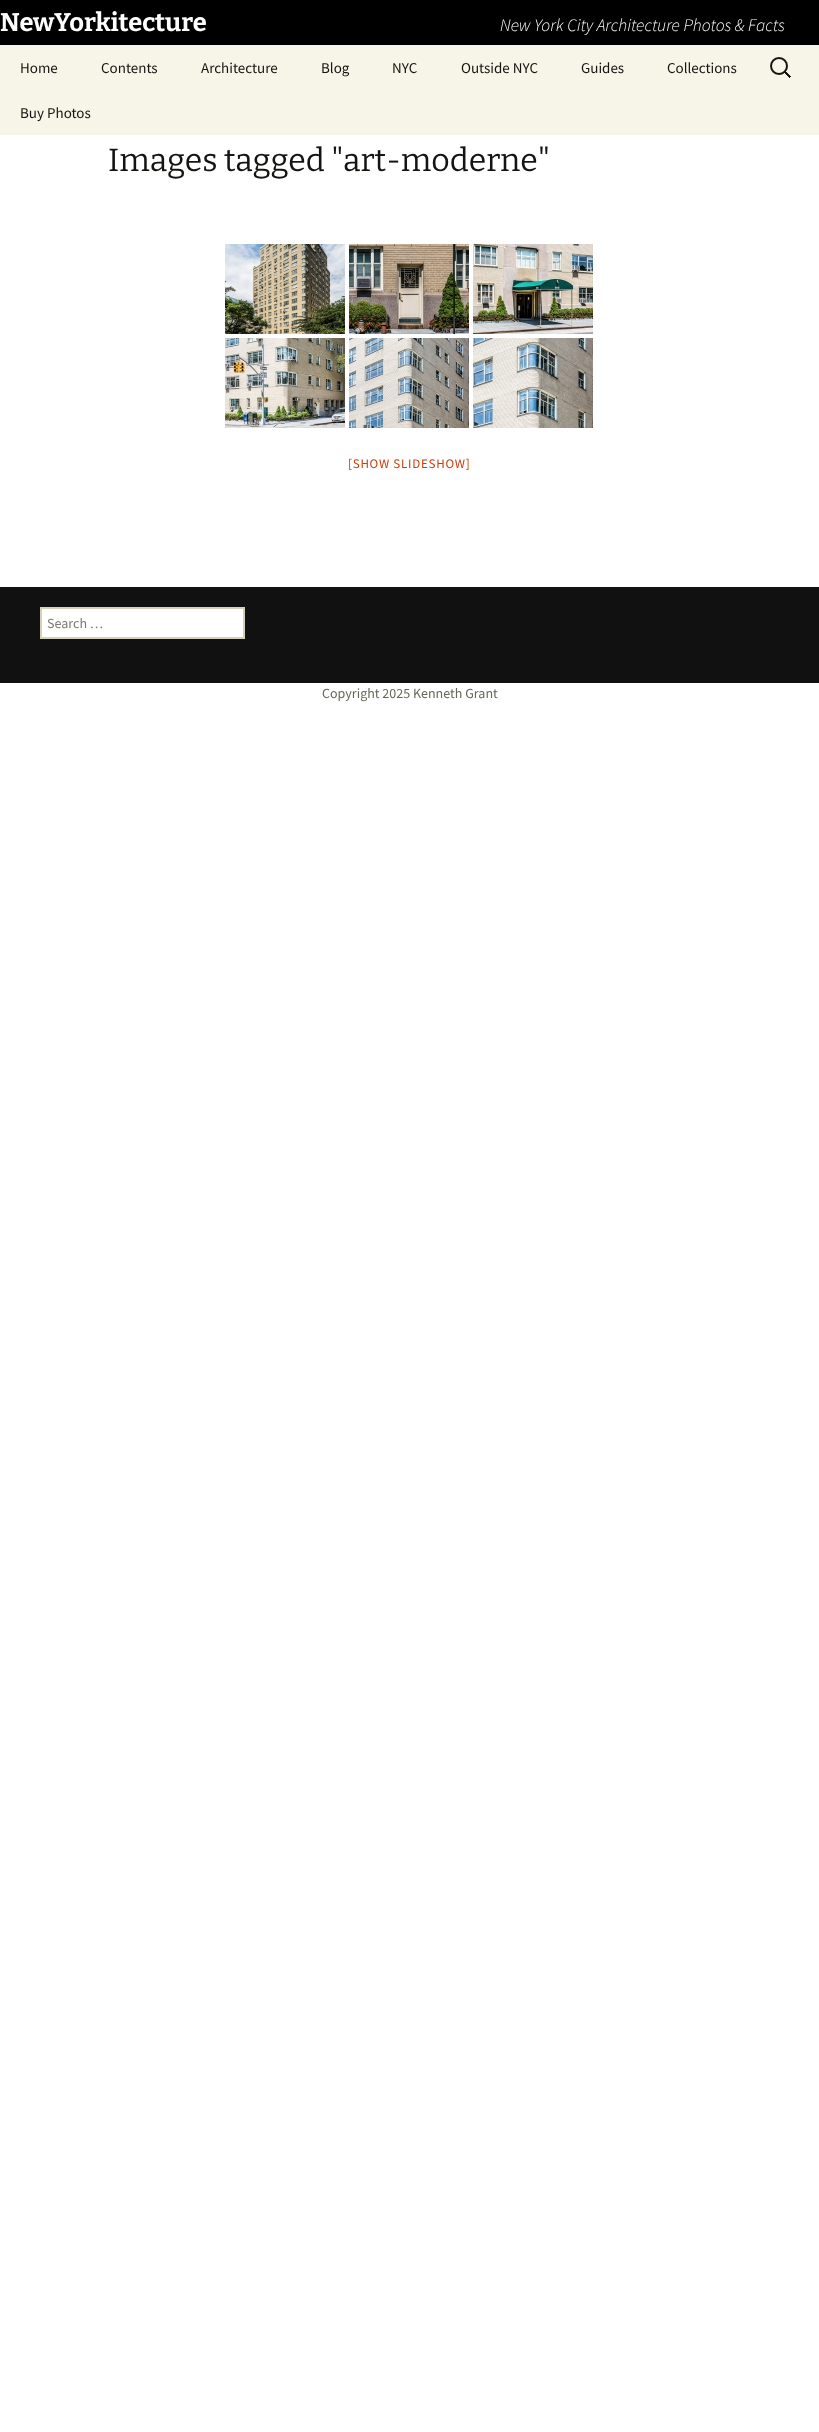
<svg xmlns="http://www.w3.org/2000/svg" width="819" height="2432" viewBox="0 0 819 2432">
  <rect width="100%" height="100%" fill="#fff"/>
  <path d="M0 0h819v45H0z" fill="#000"/>
  <path d="M0 45h819v90H0z" fill="#f7f5e7"/>
  <image x="770" y="57" width="21" height="21" href="img/1.png"/>
  <image x="225" y="244" width="120" height="90" href="img/2.png"/>
  <image x="349" y="244" width="120" height="90" href="img/3.png"/>
  <image x="473" y="244" width="120" height="90" href="img/4.png"/>
  <image x="225" y="338" width="120" height="90" href="img/5.png"/>
  <image x="349" y="338" width="120" height="90" href="img/6.png"/>
  <image x="473" y="338" width="120" height="90" href="img/7.png"/>
  <path d="M0 587h819v96H0z" fill="#111"/>
  <path d="M41 608h203v30H41z" fill="#fff" stroke="#d4d0ba" stroke-width="2"/>
  <text x="0" y="31" font-family="Bitter" font-size="25.5" font-weight="100" fill="#fff">NewYorkitecture</text>
  <text x="500" y="31" font-family="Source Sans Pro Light" font-size="17.6" font-weight="300" font-style="italic" fill="#fff">New York City Architecture Photos &amp; Facts</text>
  <g font-family="Source Sans Pro" font-size="15" fill="#141412">
    <text x="20" y="73">Home</text>
    <text x="101" y="73">Contents</text>
    <text x="201" y="73">Architecture</text>
    <text x="321" y="73">Blog</text>
    <text x="392" y="73">NYC</text>
    <text x="461" y="73">Outside NYC</text>
    <text x="581" y="73">Guides</text>
    <text x="667" y="73">Collections</text>
    <text x="20" y="118">Buy Photos</text>
  </g>
  <text x="108" y="171" font-family="'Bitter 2'" font-size="32" font-weight="100" fill="#141412">Images tagged "art-moderne"</text>
  <text x="348" y="468" font-family="Source Sans Pro" font-size="13" letter-spacing="0.75" fill="#ca3c08">[SHOW SLIDESHOW]</text>
  <text x="47" y="628" font-family="Source Sans Pro" font-size="14" fill="#7d7b6d">Search …</text>
  <text x="322" y="698" font-family="Source Sans Pro" font-size="14" fill="#686758">Copyright 2025 Kenneth Grant</text>
</svg>
